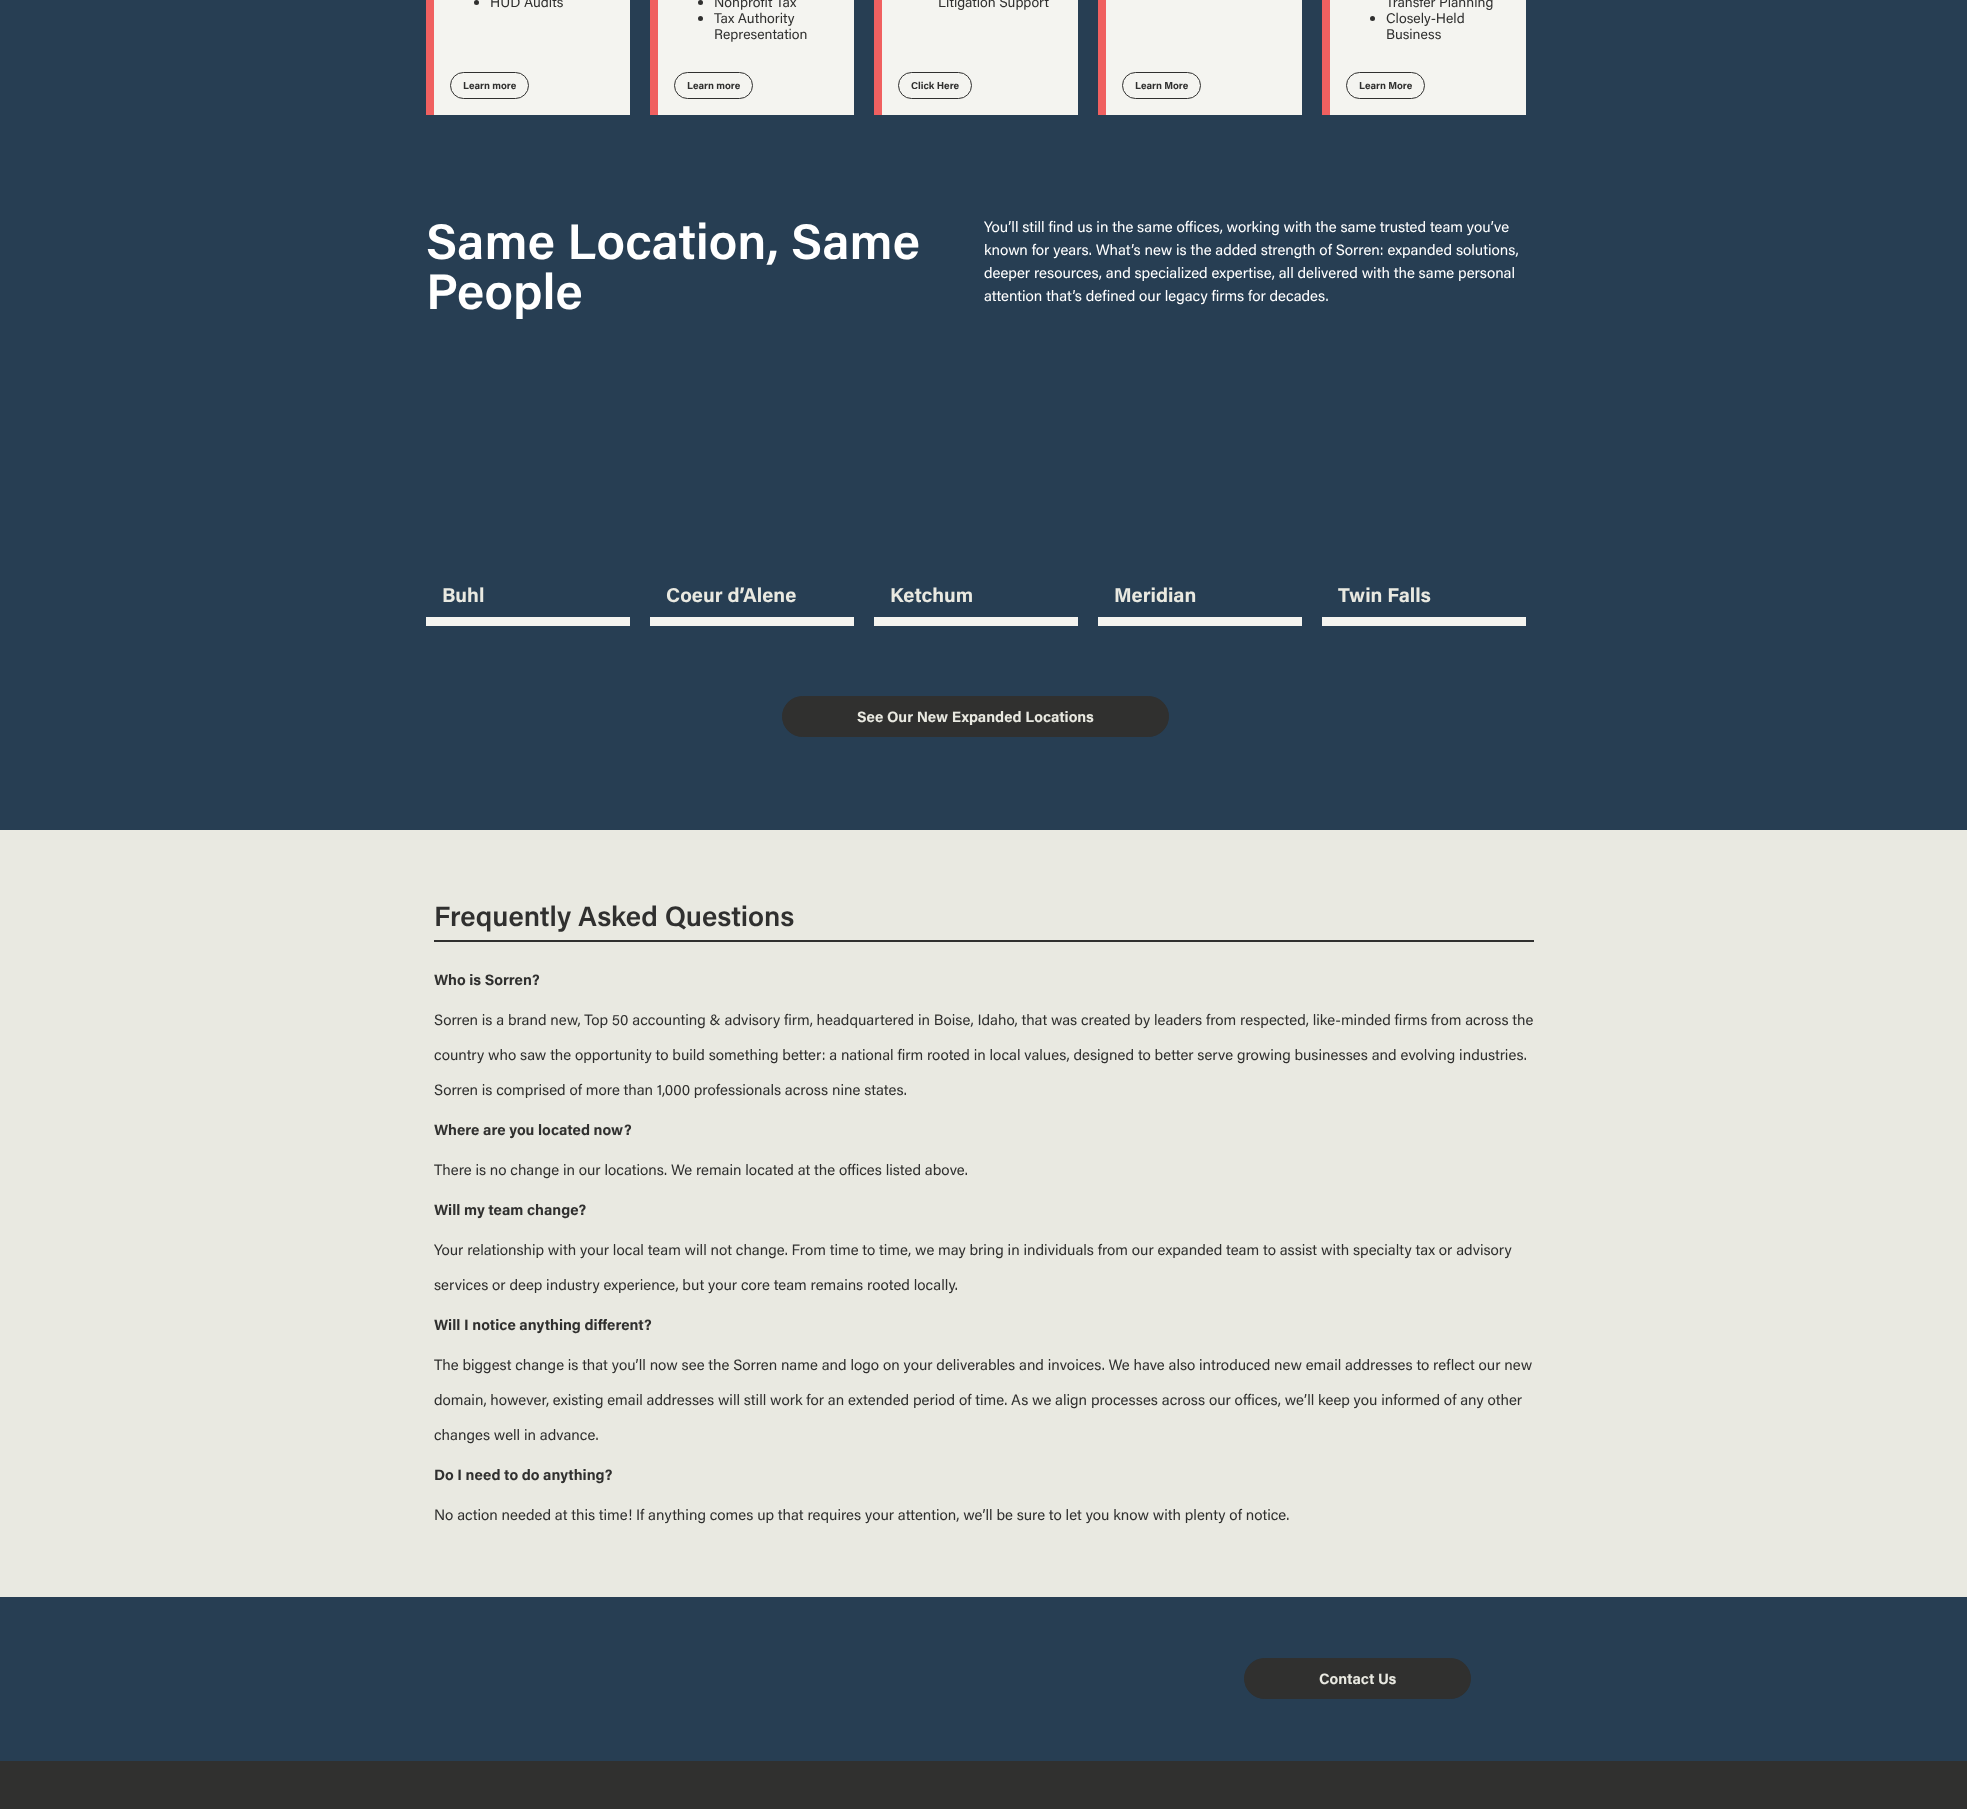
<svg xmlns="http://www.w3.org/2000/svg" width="1967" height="1809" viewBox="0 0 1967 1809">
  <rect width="100%" height="100%" fill="#273e53"/>
  <path d="M434 0h196v115H434z" fill="#f4f4f0"/>
  <path d="M426 0h8v115H426z" fill="#f06060"/>
  <circle cx="476.5" cy="2.5" r="2.5" fill="#30302f"/>
  <rect x="450.5" y="72.5" width="78" height="26" rx="13" fill="none" stroke="#30302f"/>
  <path d="M658 0h196v115H658z" fill="#f4f4f0"/>
  <path d="M650 0h8v115H650z" fill="#f06060"/>
  <circle cx="700.5" cy="2.5" r="2.5" fill="#30302f"/>
  <circle cx="700.5" cy="18.5" r="2.5" fill="#30302f"/>
  <rect x="674.5" y="72.5" width="78" height="26" rx="13" fill="none" stroke="#30302f"/>
  <path d="M882 0h196v115H882z" fill="#f4f4f0"/>
  <path d="M874 0h8v115H874z" fill="#f06060"/>
  <rect x="898.5" y="72.5" width="73" height="26" rx="13" fill="none" stroke="#30302f"/>
  <path d="M1106 0h196v115H1106z" fill="#f4f4f0"/>
  <path d="M1098 0h8v115H1098z" fill="#f06060"/>
  <rect x="1122.5" y="72.5" width="78" height="26" rx="13" fill="none" stroke="#30302f"/>
  <path d="M1330 0h196v115H1330z" fill="#f4f4f0"/>
  <path d="M1322 0h8v115H1322z" fill="#f06060"/>
  <circle cx="1372.5" cy="18.5" r="2.5" fill="#30302f"/>
  <rect x="1346.5" y="72.5" width="78" height="26" rx="13" fill="none" stroke="#30302f"/>
  <path d="M426 617h204v9H426z" fill="#f4f4f0"/>
  <path d="M650 617h204v9H650z" fill="#f4f4f0"/>
  <path d="M874 617h204v9H874z" fill="#f4f4f0"/>
  <path d="M1098 617h204v9H1098z" fill="#f4f4f0"/>
  <path d="M1322 617h204v9H1322z" fill="#f4f4f0"/>
  <rect x="782.5" y="696.5" width="386" height="40" rx="20" fill="#30302f" stroke="#30302f"/>
  <path d="M0 830h1967v767H0z" fill="#e9e9e1"/>
  <path d="M434 940h1100v2H434z" fill="#30302f"/>
  <rect x="1244.5" y="1658.5" width="226" height="40" rx="20" fill="#30302f" stroke="#30302f"/>
  <path d="M0 1761h1967v48H0z" fill="#30302f"/>
  <text x="490" y="7" font-family="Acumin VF" font-size="14" fill="#30302f">HUD Audits</text>
  <text x="463" y="89" font-family="Acumin VF" font-size="10" font-weight="bold" fill="#30302f">Learn more</text>
  <g font-family="Acumin VF" font-size="14" fill="#30302f">
    <text x="714" y="7">Nonprofit Tax</text>
    <text x="714" y="23">Tax Authority</text>
    <text x="714" y="39">Representation</text>
  </g>
  <text x="687" y="89" font-family="Acumin VF" font-size="10" font-weight="bold" fill="#30302f">Learn more</text>
  <text x="938" y="7" font-family="Acumin VF" font-size="14" fill="#30302f">Litigation Support</text>
  <g font-family="Acumin VF" font-size="10" font-weight="bold" fill="#30302f">
    <text x="911" y="89">Click Here</text>
    <text x="1135" y="89">Learn More</text>
  </g>
  <g font-family="Acumin VF" font-size="14" fill="#30302f">
    <text x="1386" y="7">Transfer Planning</text>
    <text x="1386" y="23">Closely-Held</text>
    <text x="1386" y="39">Business</text>
  </g>
  <text x="1359" y="89" font-family="Acumin VF" font-size="10" font-weight="bold" fill="#30302f">Learn More</text>
  <g font-family="Acumin VF" font-size="50" font-weight="600" fill="#fff">
    <text x="426" y="259">Same Location, Same</text>
    <text x="426" y="309">People</text>
  </g>
  <g font-family="Acumin VF" font-size="15" fill="#fff">
    <text x="984" y="232">You’ll still find us in the same offices, working with the same trusted team you’ve</text>
    <text x="984" y="255">known for years. What’s new is the added strength of Sorren: expanded solutions,</text>
    <text x="984" y="278">deeper resources, and specialized expertise, all delivered with the same personal</text>
    <text x="984" y="301">attention that’s defined our legacy firms for decades.</text>
  </g>
  <g font-family="Acumin VF" font-size="20" font-weight="bold" fill="#e9e9e1">
    <text x="442" y="602">Buhl</text>
    <text x="666" y="602">Coeur d’Alene</text>
    <text x="890" y="602">Ketchum</text>
    <text x="1114" y="602">Meridian</text>
    <text x="1338" y="602">Twin Falls</text>
  </g>
  <text x="857" y="722" font-family="Acumin VF" font-size="15" font-weight="bold" fill="#e9e9e1">See Our New Expanded Locations</text>
  <text x="434" y="926" font-family="Acumin VF" font-size="28" font-weight="600" fill="#30302f">Frequently Asked Questions</text>
  <text x="434" y="985" font-family="Acumin VF" font-size="15" font-weight="bold" fill="#30302f">Who is Sorren?</text>
  <g font-family="Acumin VF" font-size="15" fill="#30302f">
    <text x="434" y="1025">Sorren is a brand new, Top 50 accounting &amp; advisory firm, headquartered in Boise, Idaho, that was created by leaders from respected, like-minded firms from across the</text>
    <text x="434" y="1060">country who saw the opportunity to build something better: a national firm rooted in local values, designed to better serve growing businesses and evolving industries.</text>
    <text x="434" y="1095">Sorren is comprised of more than 1,000 professionals across nine states.</text>
  </g>
  <text x="434" y="1135" font-family="Acumin VF" font-size="15" font-weight="bold" fill="#30302f">Where are you located now?</text>
  <text x="434" y="1175" font-family="Acumin VF" font-size="15" fill="#30302f">There is no change in our locations. We remain located at the offices listed above.</text>
  <text x="434" y="1215" font-family="Acumin VF" font-size="15" font-weight="bold" fill="#30302f">Will my team change?</text>
  <g font-family="Acumin VF" font-size="15" fill="#30302f">
    <text x="434" y="1255">Your relationship with your local team will not change. From time to time, we may bring in individuals from our expanded team to assist with specialty tax or advisory</text>
    <text x="434" y="1290">services or deep industry experience, but your core team remains rooted locally.</text>
  </g>
  <text x="434" y="1330" font-family="Acumin VF" font-size="15" font-weight="bold" fill="#30302f">Will I notice anything different?</text>
  <g font-family="Acumin VF" font-size="15" fill="#30302f">
    <text x="434" y="1370">The biggest change is that you’ll now see the Sorren name and logo on your deliverables and invoices. We have also introduced new email addresses to reflect our new</text>
    <text x="434" y="1405">domain, however, existing email addresses will still work for an extended period of time. As we align processes across our offices, we’ll keep you informed of any other</text>
    <text x="434" y="1440">changes well in advance.</text>
  </g>
  <text x="434" y="1480" font-family="Acumin VF" font-size="15" font-weight="bold" fill="#30302f">Do I need to do anything?</text>
  <text x="434" y="1520" font-family="Acumin VF" font-size="15" fill="#30302f">No action needed at this time! If anything comes up that requires your attention, we’ll be sure to let you know with plenty of notice.</text>
  <text x="1319" y="1684" font-family="Acumin VF" font-size="15" font-weight="bold" fill="#e9e9e1">Contact Us</text>
</svg>
